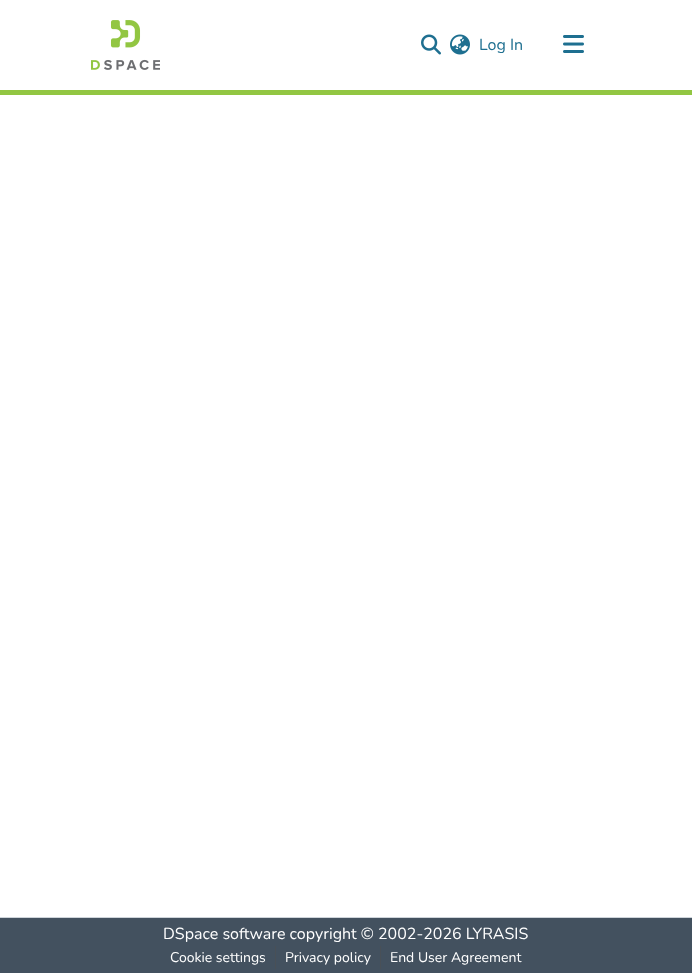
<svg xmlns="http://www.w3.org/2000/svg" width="692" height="973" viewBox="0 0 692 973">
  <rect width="100%" height="100%" fill="#fff"/>
  <path d="M0 90h692v5H0z" fill="#92c642"/>
  <image x="91" y="20" width="69" height="50" href="img/1.png"/>
  <image x="421" y="34" width="20" height="21" href="img/2.png"/>
  <image x="450" y="34" width="20" height="21" href="img/3.png"/>
  <image x="563" y="35" width="21" height="18" href="img/4.png"/>
  <path d="M0 918h692v55H0z" fill="#43515f"/>
  <path d="M0 917h692v1H0z" fill="#ced4da"/>
  <path d="M275 946h1v23H275z" fill="#495057"/>
  <path d="M380 946h1v23H380z" fill="#495057"/>
  <text x="479" y="50" font-family="Nunito" font-size="16" fill="#1e6f90">Log In</text>
  <text x="163" y="939" font-family="Nunito" font-size="16" fill="#fff">DSpace software copyright © 2002-2026 LYRASIS</text>
  <g font-family="Nunito" font-size="14" fill="#fff">
    <text x="170" y="962">Cookie settings</text>
    <text x="285" y="962">Privacy policy</text>
    <text x="390" y="962">End User Agreement</text>
  </g>
</svg>
